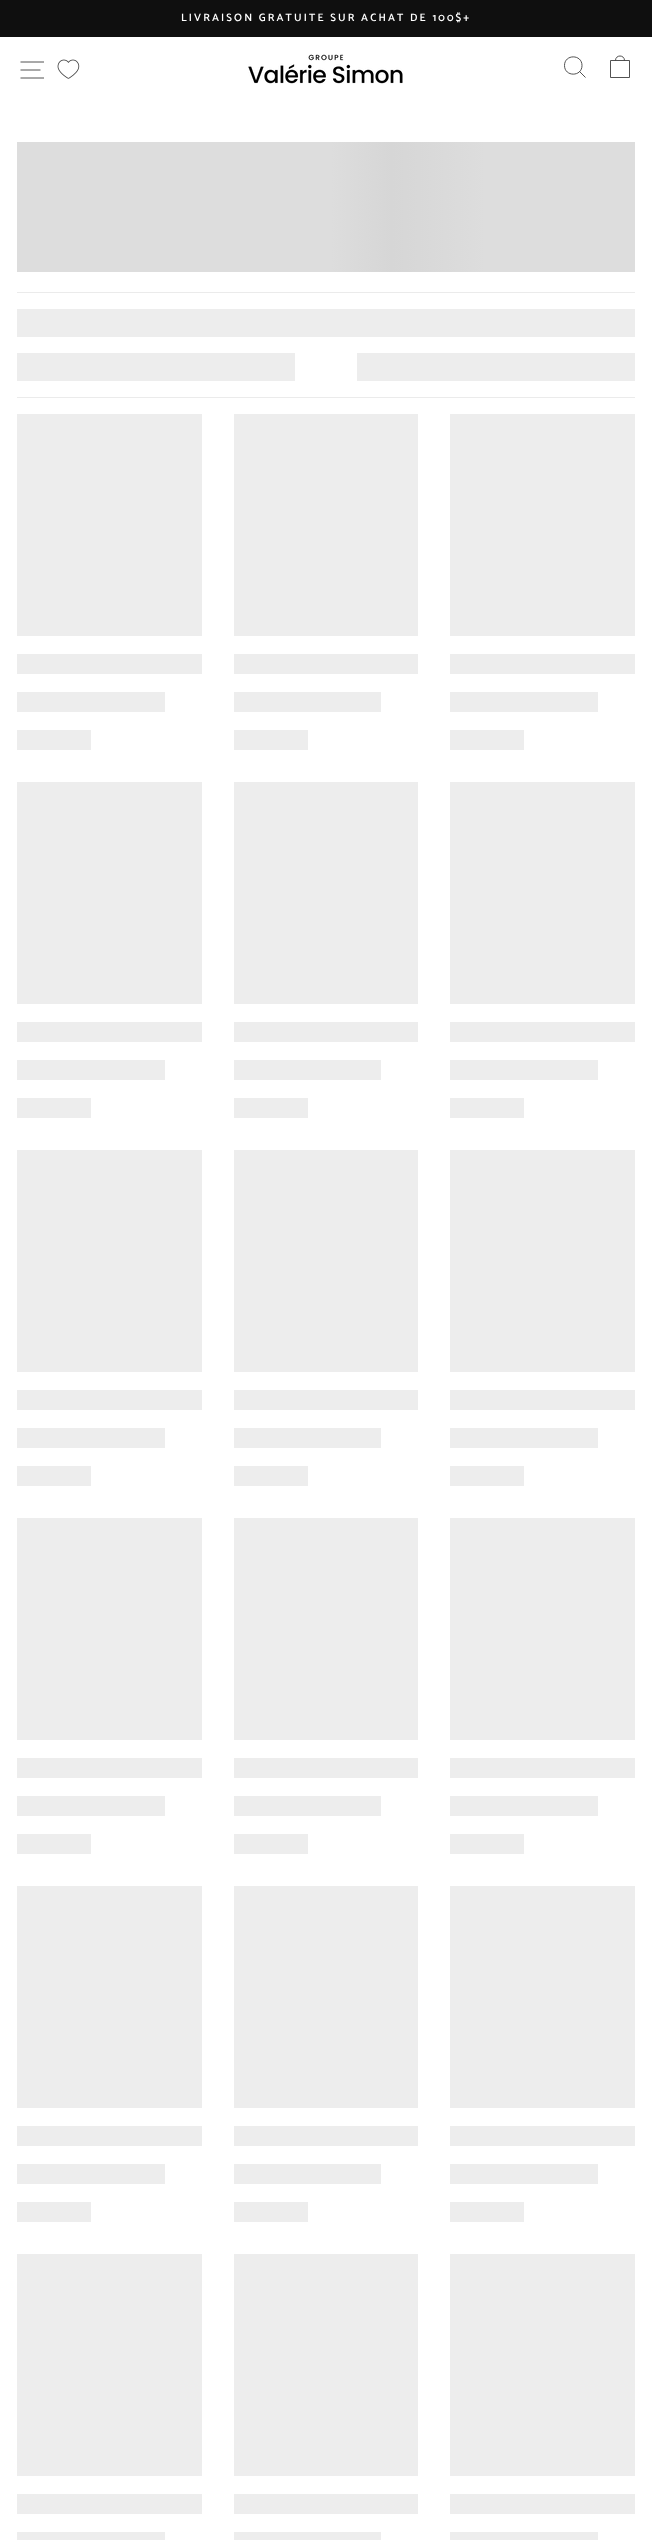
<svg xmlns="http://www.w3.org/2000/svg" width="652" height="2540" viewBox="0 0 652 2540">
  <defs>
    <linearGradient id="g1" gradientUnits="userSpaceOnUse" x1="281" y1="142" x2="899" y2="142"><stop offset="0.08" stop-color="#ddd"/><stop offset="0.18" stop-color="#d6d6d6"/><stop offset="0.33" stop-color="#ddd"/></linearGradient>
  </defs>
  <rect width="100%" height="100%" fill="#fff"/>
  <path d="M0 0h652v37H0z" fill="#0f0f0f"/>
  <path d="M20.5 62H44M20.5 70H40.5M20.5 78H44" fill="none" stroke="#3e3e3e" stroke-width="0.9"/>
  <image x="57" y="59" width="23" height="20" href="img/1.png"/>
  <image x="248" y="54" width="155" height="30" href="img/2.png"/>
  <path d="M582 65.5C582 77 564.5 77 564.5 65.5C564.5 54 582 54 582 65.5ZM585.5 77.5L579.5 71.5" fill="none" stroke="#3e3e3e" stroke-width="0.9"/>
  <path d="M610.5 60.5H629.5V77.5H610.5ZM615.5 60.5C615.5 54.5 624.5 54.5 624.5 60.5" fill="none" stroke="#3e3e3e" stroke-width="0.9"/>
  <path d="M17 142h264v130H17z" fill="#ddd"/>
  <path d="M281 142h354v130H281z" fill="url(#g1)"/>
  <path d="M17 292h618v1H17z" fill="#ebebeb"/>
  <path d="M17 397h618v1H17z" fill="#ebebeb"/>
  <path d="M17 309h618v28H17z" fill="#ededed"/>
  <path d="M17 353h278v28H17z" fill="#ededed"/>
  <path d="M357 353h278v28H357z" fill="#ededed"/>
  <path d="M17 414h185v222H17z" fill="#ededed"/>
  <path d="M17 654h185v20H17z" fill="#ededed"/>
  <path d="M17 692h148v20H17z" fill="#ededed"/>
  <path d="M17 730h74v20H17z" fill="#ededed"/>
  <path d="M234 414h184v222H234z" fill="#ededed"/>
  <path d="M234 654h184v20H234z" fill="#ededed"/>
  <path d="M234 692h147v20H234z" fill="#ededed"/>
  <path d="M234 730h74v20H234z" fill="#ededed"/>
  <path d="M450 414h185v222H450z" fill="#ededed"/>
  <path d="M450 654h185v20H450z" fill="#ededed"/>
  <path d="M450 692h148v20H450z" fill="#ededed"/>
  <path d="M450 730h74v20H450z" fill="#ededed"/>
  <path d="M17 782h185v222H17z" fill="#ededed"/>
  <path d="M17 1022h185v20H17z" fill="#ededed"/>
  <path d="M17 1060h148v20H17z" fill="#ededed"/>
  <path d="M17 1098h74v20H17z" fill="#ededed"/>
  <path d="M234 782h184v222H234z" fill="#ededed"/>
  <path d="M234 1022h184v20H234z" fill="#ededed"/>
  <path d="M234 1060h147v20H234z" fill="#ededed"/>
  <path d="M234 1098h74v20H234z" fill="#ededed"/>
  <path d="M450 782h185v222H450z" fill="#ededed"/>
  <path d="M450 1022h185v20H450z" fill="#ededed"/>
  <path d="M450 1060h148v20H450z" fill="#ededed"/>
  <path d="M450 1098h74v20H450z" fill="#ededed"/>
  <path d="M17 1150h185v222H17z" fill="#ededed"/>
  <path d="M17 1390h185v20H17z" fill="#ededed"/>
  <path d="M17 1428h148v20H17z" fill="#ededed"/>
  <path d="M17 1466h74v20H17z" fill="#ededed"/>
  <path d="M234 1150h184v222H234z" fill="#ededed"/>
  <path d="M234 1390h184v20H234z" fill="#ededed"/>
  <path d="M234 1428h147v20H234z" fill="#ededed"/>
  <path d="M234 1466h74v20H234z" fill="#ededed"/>
  <path d="M450 1150h185v222H450z" fill="#ededed"/>
  <path d="M450 1390h185v20H450z" fill="#ededed"/>
  <path d="M450 1428h148v20H450z" fill="#ededed"/>
  <path d="M450 1466h74v20H450z" fill="#ededed"/>
  <path d="M17 1518h185v222H17z" fill="#ededed"/>
  <path d="M17 1758h185v20H17z" fill="#ededed"/>
  <path d="M17 1796h148v20H17z" fill="#ededed"/>
  <path d="M17 1834h74v20H17z" fill="#ededed"/>
  <path d="M234 1518h184v222H234z" fill="#ededed"/>
  <path d="M234 1758h184v20H234z" fill="#ededed"/>
  <path d="M234 1796h147v20H234z" fill="#ededed"/>
  <path d="M234 1834h74v20H234z" fill="#ededed"/>
  <path d="M450 1518h185v222H450z" fill="#ededed"/>
  <path d="M450 1758h185v20H450z" fill="#ededed"/>
  <path d="M450 1796h148v20H450z" fill="#ededed"/>
  <path d="M450 1834h74v20H450z" fill="#ededed"/>
  <path d="M17 1886h185v222H17z" fill="#ededed"/>
  <path d="M17 2126h185v20H17z" fill="#ededed"/>
  <path d="M17 2164h148v20H17z" fill="#ededed"/>
  <path d="M17 2202h74v20H17z" fill="#ededed"/>
  <path d="M234 1886h184v222H234z" fill="#ededed"/>
  <path d="M234 2126h184v20H234z" fill="#ededed"/>
  <path d="M234 2164h147v20H234z" fill="#ededed"/>
  <path d="M234 2202h74v20H234z" fill="#ededed"/>
  <path d="M450 1886h185v222H450z" fill="#ededed"/>
  <path d="M450 2126h185v20H450z" fill="#ededed"/>
  <path d="M450 2164h148v20H450z" fill="#ededed"/>
  <path d="M450 2202h74v20H450z" fill="#ededed"/>
  <path d="M17 2254h185v222H17z" fill="#ededed"/>
  <path d="M17 2494h185v20H17z" fill="#ededed"/>
  <path d="M17 2532h148v8H17z" fill="#ededed"/>
  <path d="M234 2254h184v222H234z" fill="#ededed"/>
  <path d="M234 2494h184v20H234z" fill="#ededed"/>
  <path d="M234 2532h147v8H234z" fill="#ededed"/>
  <path d="M450 2254h185v222H450z" fill="#ededed"/>
  <path d="M450 2494h185v20H450z" fill="#ededed"/>
  <path d="M450 2532h148v8H450z" fill="#ededed"/>
  <text x="181" y="21" font-family="Catamaran" font-size="10.8" font-weight="600" letter-spacing="2.15" fill="#fff">LIVRAISON GRATUITE SUR ACHAT DE 100$+</text>
</svg>
